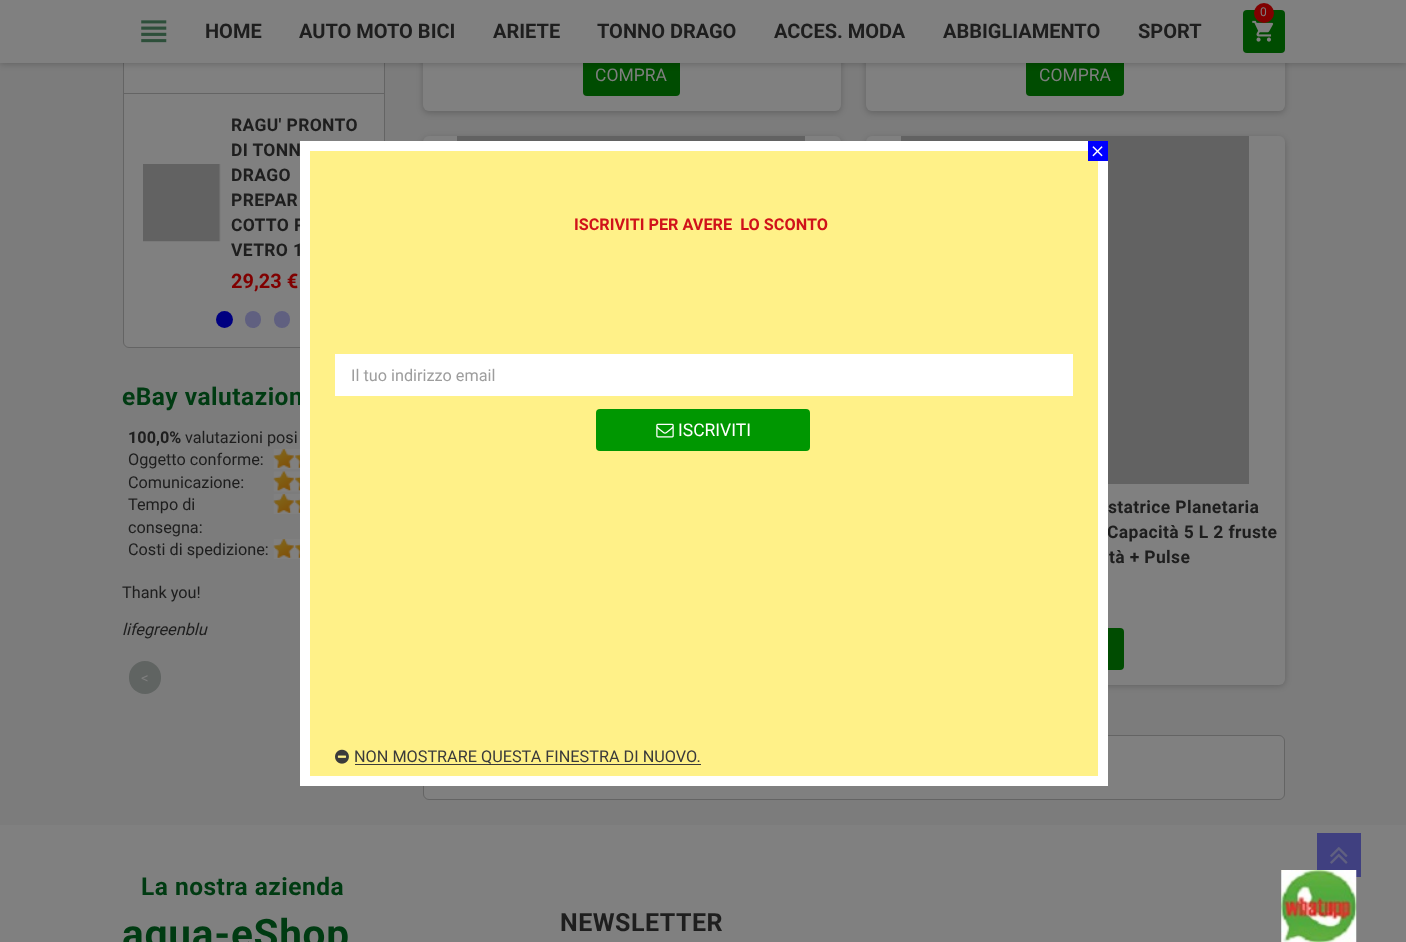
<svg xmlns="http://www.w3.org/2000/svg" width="1406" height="942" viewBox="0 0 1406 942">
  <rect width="100%" height="100%" fill="#808080"/>
  <path d="M0 63h1406v762H0z" fill="#7c7c7c"/>
  <rect x="123.5" y="-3.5" width="261" height="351" rx="5.5" fill="#808080" stroke="#646464"/>
  <rect x="423" y="-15" width="418" height="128" rx="6" fill="#00000033" filter="blur(3px)"/>
  <rect x="423" y="-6" width="418" height="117" rx="6" fill="#808080"/>
  <rect x="583" y="54" width="97" height="42" rx="4" fill="#004c01"/>
  <rect x="866" y="-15" width="419" height="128" rx="6" fill="#00000033" filter="blur(3px)"/>
  <rect x="866" y="-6" width="419" height="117" rx="6" fill="#808080"/>
  <rect x="1026" y="54" width="98" height="42" rx="4" fill="#004c01"/>
  <path d="M0 1h1406v63H0z" fill="#00000033" filter="blur(3px)"/>
  <path d="M0 0h1406v63H0z" fill="#808080"/>
  <rect x="1243" y="10" width="42" height="43" rx="4" fill="#004c01"/>
  <image x="1252" y="20" width="22" height="22" href="img/1.png"/>
  <circle cx="1264" cy="13" r="10" fill="#800000"/>
  <image x="141" y="20" width="26" height="23" href="img/2.png"/>
  <path d="M124 93h260v1H124z" fill="#646464"/>
  <image x="143" y="164" width="78" height="78" href="img/3.png"/>
  <circle cx="224.5" cy="319.5" r="8.5" fill="#000080"/>
  <rect x="245" y="311" width="16" height="17" rx="8" fill="#606080"/>
  <rect x="274" y="311" width="16" height="17" rx="8" fill="#606080"/>
  <image x="273" y="449" width="27" height="20" href="img/4.png"/>
  <image x="273" y="471" width="27" height="21" href="img/5.png"/>
  <image x="273" y="494" width="27" height="20" href="img/4.png"/>
  <image x="273" y="539" width="27" height="20" href="img/4.png"/>
  <rect x="129" y="661" width="32" height="33" rx="16" fill="#606462"/>
  <rect x="423" y="138" width="418" height="548" rx="6" fill="#00000033" filter="blur(3px)"/>
  <rect x="423" y="136" width="418" height="549" rx="6" fill="#808080"/>
  <path d="M457 136h348v5H457z" fill="#626262"/>
  <rect x="866" y="138" width="419" height="548" rx="6" fill="#00000033" filter="blur(3px)"/>
  <rect x="866" y="136" width="419" height="549" rx="6" fill="#808080"/>
  <path d="M901 136h348v348H901z" fill="#626262"/>
  <rect x="1026" y="628" width="98" height="42" rx="4" fill="#004c01"/>
  <rect x="423.5" y="735.5" width="861" height="64" rx="5.5" fill="#808080" stroke="#646464"/>
  <path d="M1317 833h44v44H1317z" fill="#404080"/>
  <image x="1281" y="870" width="76" height="72" href="img/6.png"/>
  <image x="1330" y="847" width="18" height="17" href="img/10.png"/>
  <text x="1260" y="16" font-family="Roboto" font-size="12" fill="#7e7e7e">0</text>
  <g font-family="Roboto" font-size="20" font-weight="bold" fill="#1e1e1e">
    <text x="205" y="38">HOME</text>
    <text x="299" y="38">AUTO MOTO BICI</text>
    <text x="493" y="38">ARIETE</text>
    <text x="597" y="38">TONNO DRAGO</text>
    <text x="774" y="38">ACCES. MODA</text>
    <text x="943" y="38">ABBIGLIAMENTO</text>
    <text x="1138" y="38">SPORT</text>
  </g>
  <g font-family="'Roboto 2'" font-size="17.5" font-weight="bold" letter-spacing="0.35" fill="#1e1e1e">
    <text x="231" y="131">RAGU' PRONTO</text>
    <text x="231" y="156">DI TONN</text>
    <text x="231" y="181">DRAGO</text>
    <text x="231" y="206">PREPAR</text>
    <text x="231" y="231">COTTO P</text>
    <text x="231" y="256">VETRO 1</text>
  </g>
  <text x="231" y="288" font-family="'Roboto 2'" font-size="20" font-weight="bold" fill="#800000">29,23 €</text>
  <text x="122" y="405" font-family="Roboto" font-size="24.5" font-weight="bold" letter-spacing="0.5" fill="#003b12">eBay valutazion</text>
  <text x="128" y="443" font-family="'Roboto 2'" font-size="16.25" font-weight="bold" fill="#1e1e1e">100,0%</text>
  <g font-family="Roboto" font-size="16.25" fill="#1e1e1e">
    <text x="185" y="443">valutazioni posi</text>
    <text x="128" y="465">Oggetto conforme:</text>
    <text x="128" y="488">Comunicazione:</text>
    <text x="128" y="510">Tempo di</text>
    <text x="128" y="533">consegna:</text>
    <text x="128" y="555">Costi di spedizione:</text>
    <text x="122" y="598">Thank you!</text>
  </g>
  <text x="122" y="635" font-family="Roboto" font-size="16.25" font-style="italic" fill="#1e1e1e">lifegreenblu</text>
  <text x="141" y="683" font-family="Roboto" font-size="15" fill="#7e7e7e">&lt;</text>
  <g font-family="Roboto" font-size="17.5" fill="#7e7e7e">
    <text x="595" y="81">COMPRA</text>
    <text x="1039" y="81">COMPRA</text>
  </g>
  <g font-family="'Roboto 2'" font-size="17.5" font-weight="bold" letter-spacing="0.35" fill="#1e1e1e">
    <text x="1108" y="513">statrice Planetaria</text>
    <text x="1107" y="538">Capacità 5 L 2 fruste</text>
    <text x="1109" y="563">tà + Pulse</text>
  </g>
  <text x="141" y="895" font-family="Roboto" font-size="24.5" font-weight="bold" letter-spacing="0.5" fill="#003b12">La nostra azienda</text>
  <text x="122" y="948" font-family="Roboto" font-size="40.5" font-weight="bold" letter-spacing="0.75" fill="#003b12">agua-eShop</text>
  <text x="560" y="931" font-family="Roboto" font-size="25" font-weight="bold" letter-spacing="0.5" fill="#1e1e1e">NEWSLETTER</text>
  <path d="M300 141h808v645H300z" fill="#fff"/>
  <path d="M310 151h788v625H310z" fill="#fff188"/>
  <path d="M1088 141h20v20H1088z" fill="#00f"/>
  <image x="1092" y="146" width="11" height="11" href="img/7.png"/>
  <text x="574" y="230" font-family="'Roboto 2'" font-size="16.25" font-weight="bold" fill="#d0121a" xml:space="preserve">ISCRIVITI PER AVERE  LO SCONTO</text>
  <path d="M335 354h738v42H335z" fill="#fff"/>
  <text x="351" y="381" font-family="Roboto" font-size="16.25" fill="#9d9d9d">Il tuo indirizzo email</text>
  <rect x="596" y="409" width="214" height="42" rx="4" fill="#009701"/>
  <image x="656" y="423" width="18" height="15" href="img/8.png"/>
  <text x="678" y="436" font-family="Roboto" font-size="17.5" fill="#fff">ISCRIVITI</text>
  <image x="335" y="749" width="14" height="15" href="img/9.png"/>
  <text x="354" y="762" font-family="Roboto" font-size="16.25" fill="#3b3b3b">NON MOSTRARE QUESTA FINESTRA DI NUOVO.</text>
  <path d="M355 764h346v1H355z" fill="#3b3b3b"/>
</svg>
